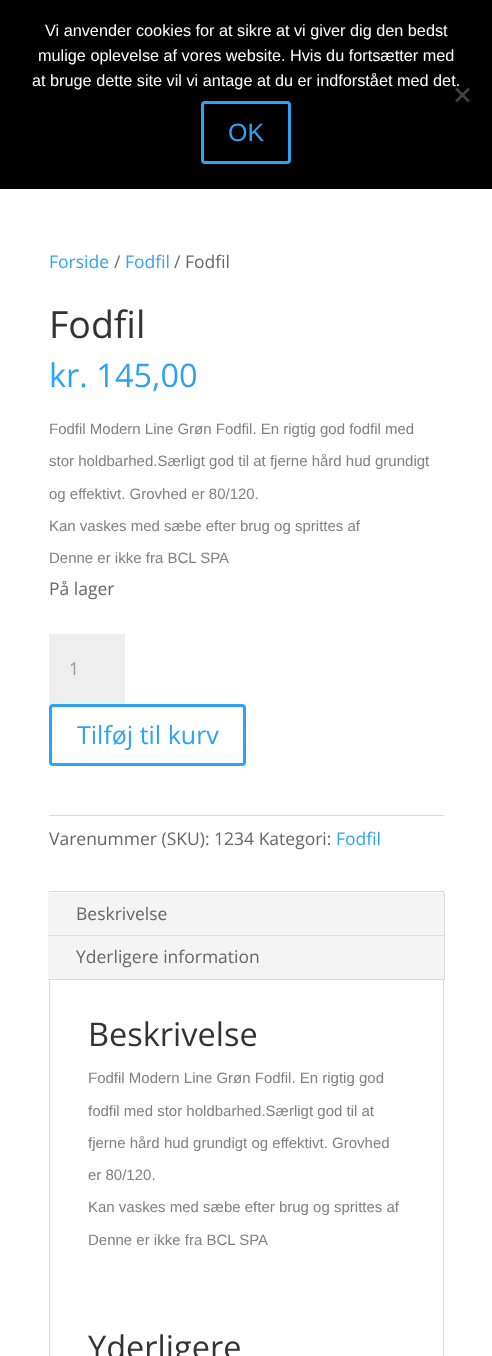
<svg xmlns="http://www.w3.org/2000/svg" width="492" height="1356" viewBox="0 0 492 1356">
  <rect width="100%" height="100%" fill="#fff"/>
  <path d="M0 0h492v189H0z" fill="#000"/>
  <rect x="202.5" y="102.5" width="87" height="60" rx="2.5" fill="none" stroke="#2ea3f2" stroke-width="3"/>
  <path d="M49 634h76v70H49z" fill="#eee"/>
  <rect x="50.5" y="705.5" width="194" height="59" rx="2.5" fill="none" stroke="#2ea3f2" stroke-width="3"/>
  <path d="M49 815h395v1H49z" fill="#dadada"/>
  <path d="M49.5 891.5h394v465H49.5z" fill="none" stroke="#d9d9d9"/>
  <path d="M48 893h396v42H48z" fill="#f4f4f4"/>
  <path d="M444 893h1v87H444z" fill="#d9d9d9"/>
  <path d="M48 935h397v1H48z" fill="#e0dadf"/>
  <path d="M48 936h396v43H48z" fill="#f4f4f4"/>
  <path d="M48 979h397v1H48z" fill="#e0dadf"/>
  <g font-family="Liberation Sans" font-size="16.25" fill="#fff">
    <text x="45" y="36">Vi anvender cookies for at sikre at vi giver dig den bedst</text>
    <text x="38" y="61">mulige oplevelse af vores website. Hvis du fortsætter med</text>
    <text x="32" y="86">at bruge dette site vil vi antage at du er indforstået med det.</text>
  </g>
  <path d="M468 87.5L470 89.5L457 102.5L455 100.5Z" fill="#404040"/>
  <path d="M455 89.5L457 87.5L470 100.5L468 102.5Z" fill="#404040"/>
  <text x="228" y="141" font-family="Liberation Sans" font-size="25" fill="#2ea3f2">OK</text>
  <text x="49" y="268" font-family="Open Sans" font-size="17.5" fill="#2ea3f2">Forside</text>
  <text x="114" y="268" font-family="Open Sans" font-size="17.5" fill="#666">/</text>
  <text x="125" y="268" font-family="Open Sans" font-size="17.5" fill="#2ea3f2">Fodfil</text>
  <text x="174" y="268" font-family="Open Sans" font-size="17.5" fill="#666">/ Fodfil</text>
  <text x="49" y="338" font-family="Open Sans" font-size="37.5" fill="#333">Fodfil</text>
  <text x="49" y="387" font-family="Open Sans" font-size="32.5" fill="#2ea3f2">kr. 145,00</text>
  <g font-family="Liberation Sans" font-size="15" fill="#808080">
    <text x="49" y="434">Fodfil Modern Line Grøn Fodfil. En rigtig god fodfil med</text>
    <text x="49" y="466">stor holdbarhed.Særligt god til at fjerne hård hud grundigt</text>
    <text x="49" y="499">og effektivt. Grovhed er 80/120.</text>
    <text x="49" y="531">Kan vaskes med sæbe efter brug og sprittes af</text>
    <text x="49" y="563">Denne er ikke fra BCL SPA</text>
  </g>
  <text x="49" y="595" font-family="Open Sans" font-size="17.5" fill="#666">På lager</text>
  <text x="69" y="675" font-family="Open Sans" font-size="17.5" fill="#999">1</text>
  <text x="77" y="744" font-family="Open Sans" font-size="25" fill="#2ea3f2">Tilføj til kurv</text>
  <text x="49" y="845" font-family="Open Sans" font-size="17.5" fill="#666">Varenummer (SKU): 1234 Kategori:</text>
  <text x="336" y="845" font-family="Open Sans" font-size="17.5" fill="#2ea3f2">Fodfil</text>
  <g font-family="Open Sans" font-size="17.5" fill="#666">
    <text x="76" y="920">Beskrivelse</text>
    <text x="76" y="963">Yderligere information</text>
  </g>
  <text x="88" y="1046" font-family="Open Sans" font-size="32.5" fill="#333">Beskrivelse</text>
  <g font-family="Liberation Sans" font-size="15" fill="#808080">
    <text x="88" y="1083">Fodfil Modern Line Grøn Fodfil. En rigtig god</text>
    <text x="88" y="1116">fodfil med stor holdbarhed.Særligt god til at</text>
    <text x="88" y="1148">fjerne hård hud grundigt og effektivt. Grovhed</text>
    <text x="88" y="1180">er 80/120.</text>
    <text x="88" y="1212">Kan vaskes med sæbe efter brug og sprittes af</text>
    <text x="88" y="1245">Denne er ikke fra BCL SPA</text>
  </g>
  <text x="88" y="1359" font-family="Open Sans" font-size="32.5" fill="#333">Yderligere</text>
</svg>
